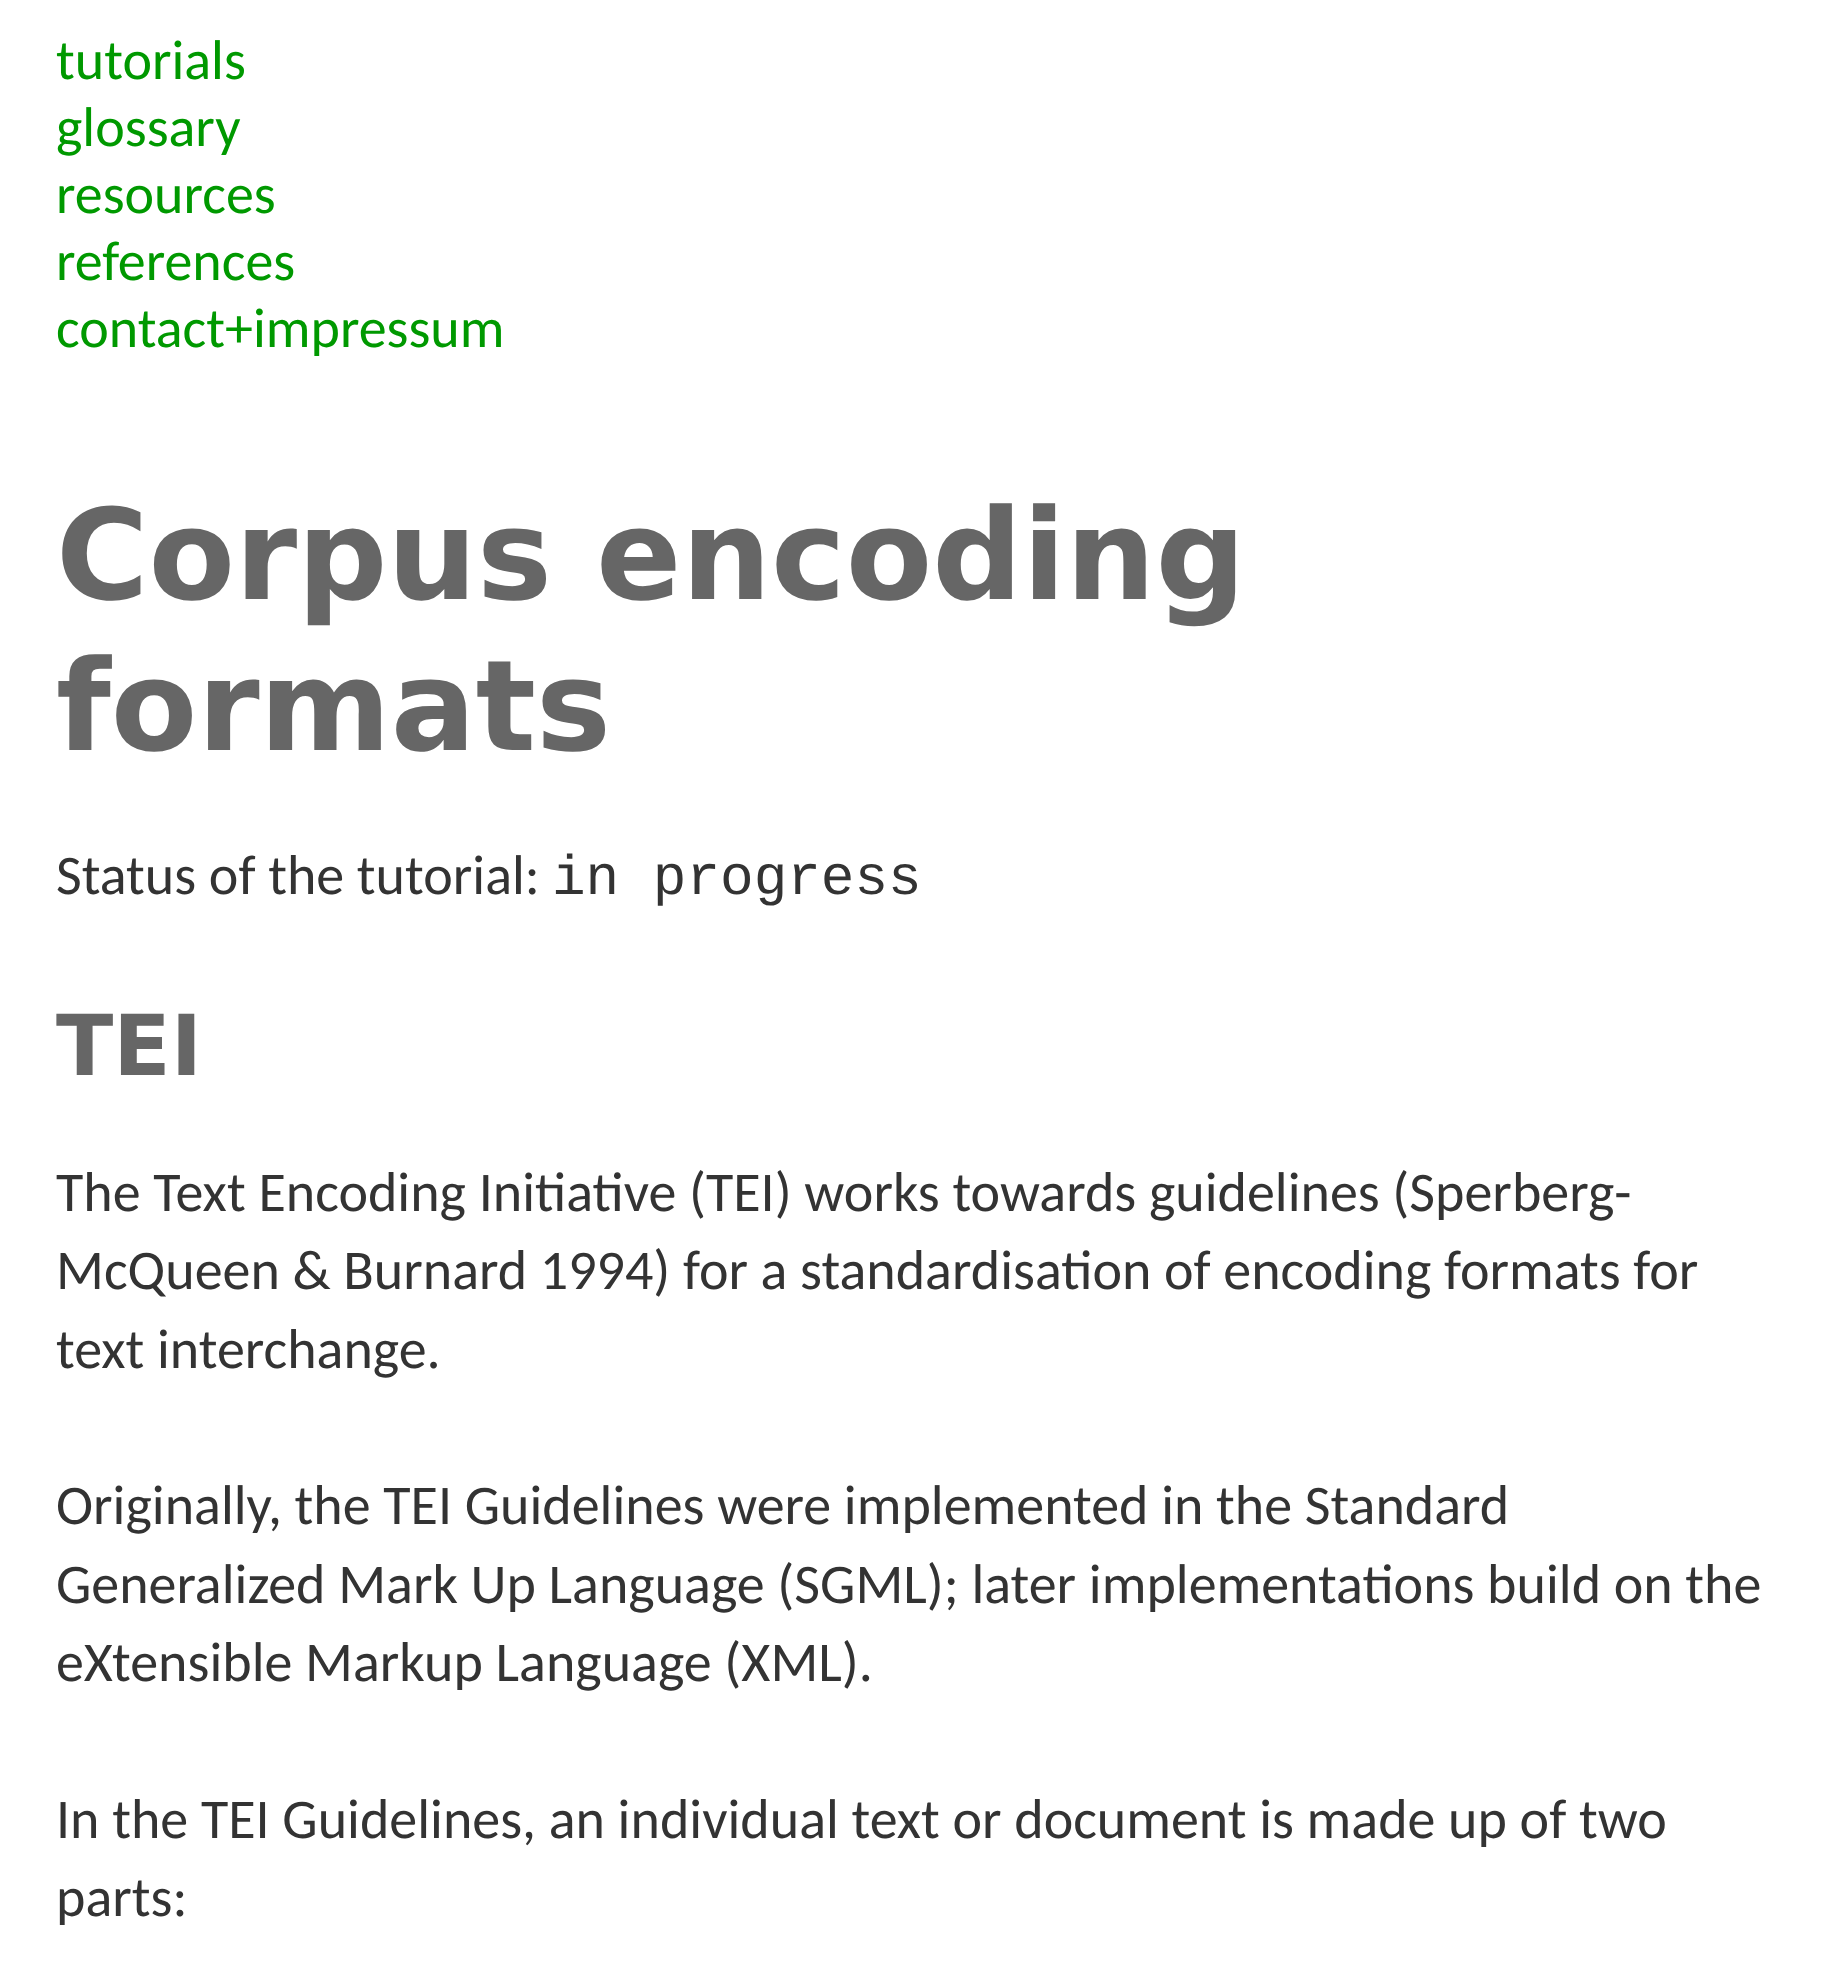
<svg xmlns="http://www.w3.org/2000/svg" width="1838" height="1985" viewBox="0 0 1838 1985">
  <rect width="100%" height="100%" fill="#fff"/>
  <g font-family="Carlito" font-size="56" fill="#090">
    <text x="56" y="79">tutorials</text>
    <text x="56" y="146">glossary</text>
    <text x="56" y="213">resources</text>
    <text x="56" y="280">references</text>
    <text x="56" y="347">contact+impressum</text>
  </g>
  <g font-family="DejaVu Sans" font-size="126" font-weight="bold" fill="#666">
    <text x="56" y="599">Corpus encoding</text>
    <text x="56" y="750">formats</text>
  </g>
  <text x="56" y="894" font-family="Carlito" font-size="56" fill="#333">Status of the tutorial:</text>
  <text x="552" y="894" font-family="Liberation Mono" font-size="56" fill="#333">in progress</text>
  <text x="56" y="1075" font-family="DejaVu Sans" font-size="84" font-weight="bold" fill="#666">TEI</text>
  <g font-family="Carlito" font-size="56" fill="#333">
    <text x="56" y="1211">The Text Encoding Initiative (TEI) works towards guidelines (Sperberg-</text>
    <text x="56" y="1289">McQueen &amp; Burnard 1994) for a standardisation of encoding formats for</text>
    <text x="56" y="1368">text interchange.</text>
    <text x="56" y="1524">Originally, the TEI Guidelines were implemented in the Standard</text>
    <text x="56" y="1603">Generalized Mark Up Language (SGML); later implementations build on the</text>
    <text x="56" y="1681">eXtensible Markup Language (XML).</text>
    <text x="56" y="1838">In the TEI Guidelines, an individual text or document is made up of two</text>
    <text x="56" y="1916">parts:</text>
  </g>
</svg>
